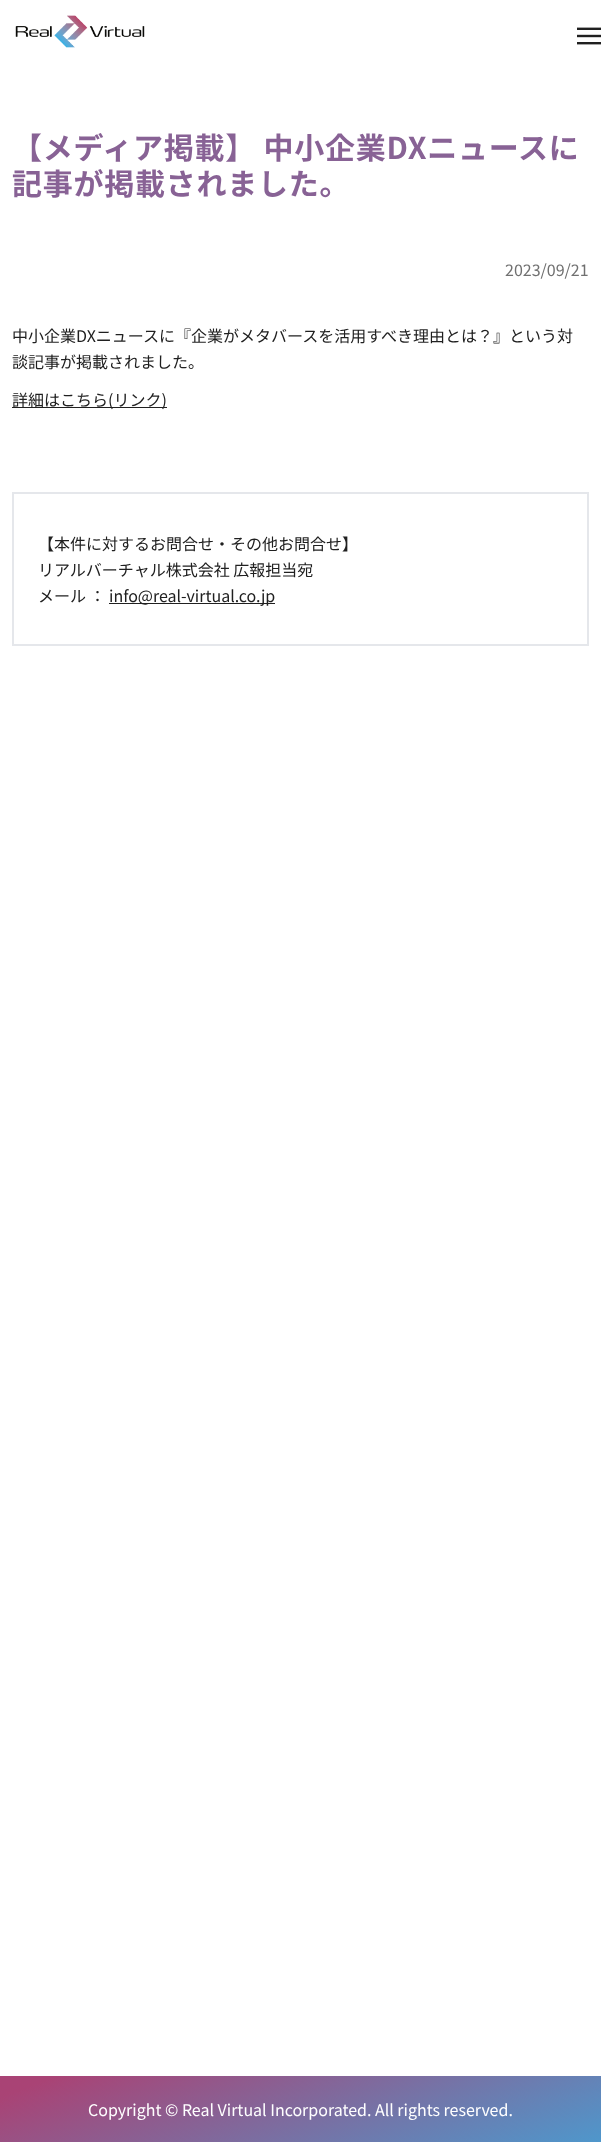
<svg xmlns="http://www.w3.org/2000/svg" width="601" height="2142" viewBox="0 0 601 2142">
  <defs>
    <linearGradient id="g1" gradientUnits="userSpaceOnUse" x1="251" y1="1980" x2="370" y2="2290"><stop offset="0.06" stop-color="#a94375"/><stop offset="1" stop-color="#3ba9de"/></linearGradient>
  </defs>
  <rect width="100%" height="100%" fill="#fff"/>
  <image x="15" y="15" width="130" height="33" href="img/1.png"/>
  <image x="577" y="27" width="24" height="18" href="img/2.png"/>
  <path d="M12 407h155v1H12z" fill="#202020"/>
  <path d="M13 493h575v152H13z" fill="none" stroke="#e5e7eb" stroke-width="2"/>
  <path d="M109 603h166v1H109z" fill="#202020"/>
  <path d="M0 2076h601v66H0z" fill="url(#g1)"/>
  <g font-family="Noto Sans JP" font-size="30" font-weight="bold" letter-spacing="0.75" fill="#886295">
    <text x="12" y="159">【メディア掲載】 中小企業DXニュースに</text>
    <text x="12" y="195">記事が掲載されました。</text>
  </g>
  <text x="505" y="276" font-family="Noto Sans JP" font-size="16" fill="#707070">2023/09/21</text>
  <g font-family="Noto Sans JP" font-size="16" fill="#202020">
    <text x="12" y="342">中小企業DXニュースに『企業がメタバースを活用すべき理由とは？』という対</text>
    <text x="12" y="368">談記事が掲載されました。</text>
    <text x="12" y="406">詳細はこちら(リンク)</text>
    <text x="38" y="550">【本件に対するお問合せ・その他お問合せ】</text>
    <text x="38" y="576">リアルバーチャル株式会社 広報担当宛</text>
    <text x="38" y="602">メール ：</text>
    <text x="109" y="602">info@real-virtual.co.jp</text>
  </g>
  <text x="88" y="2116" font-family="Noto Sans JP" font-size="16" fill="#fff">Copyright © Real Virtual Incorporated. All rights reserved.</text>
</svg>
